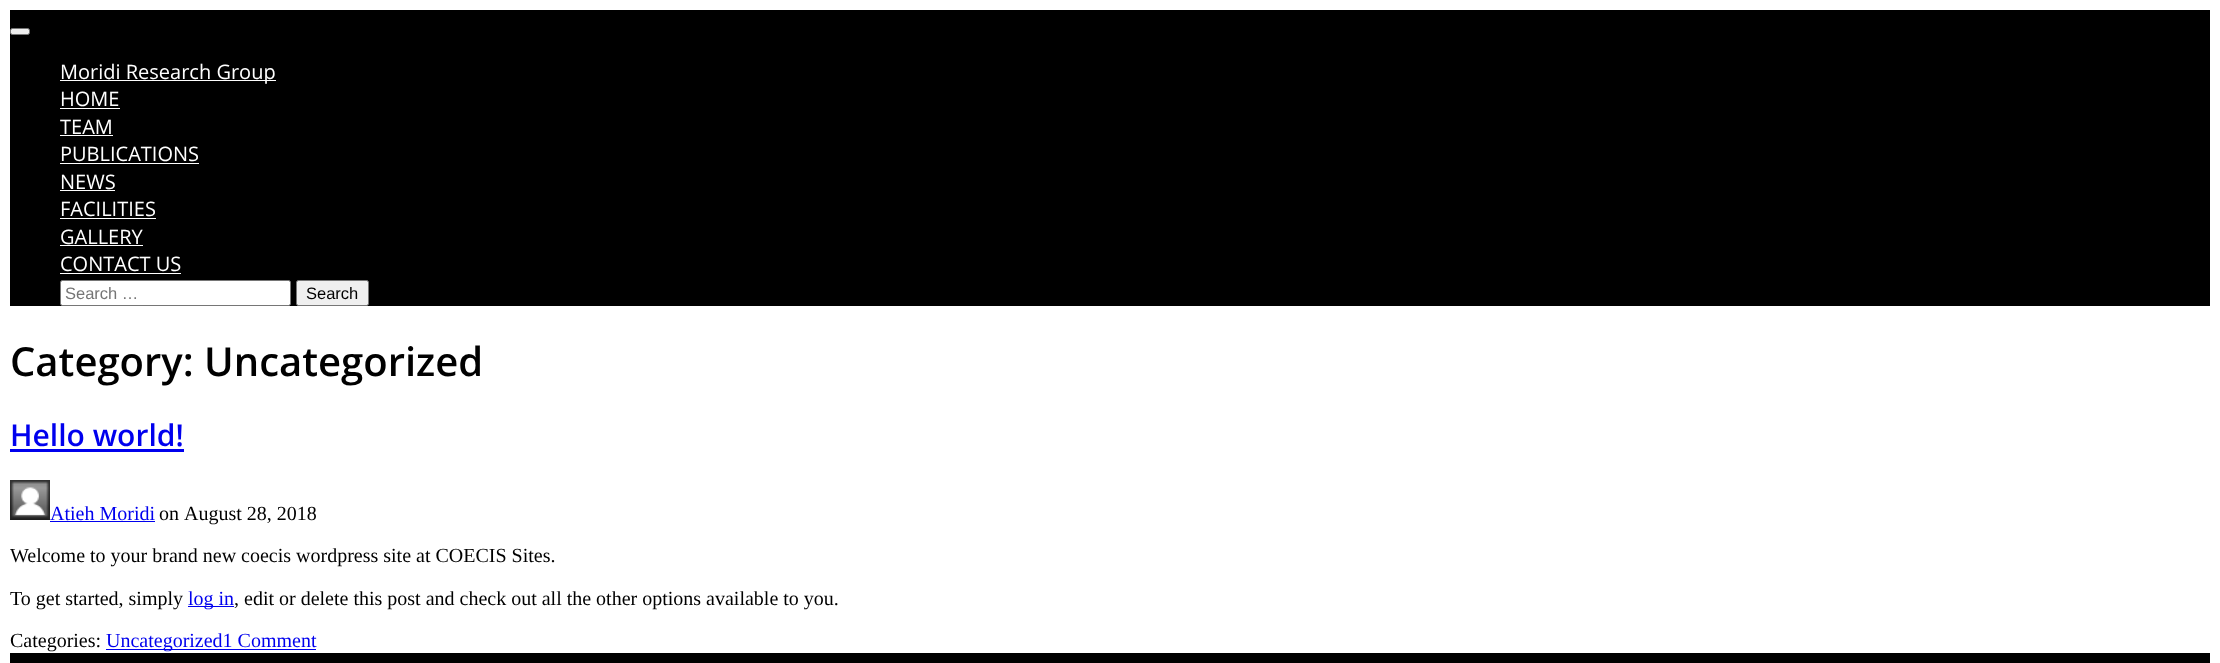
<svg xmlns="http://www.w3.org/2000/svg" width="2220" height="663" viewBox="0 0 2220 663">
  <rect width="100%" height="100%" fill="#fff"/>
  <path d="M10 10h2200v296H10z" fill="#000"/>
  <rect x="10.5" y="28.5" width="19" height="6" rx="2" fill="#efefef" stroke="#767676"/>
  <path d="M60 80h216v1H60z" fill="#fff"/>
  <path d="M60 108h60v1H60z" fill="#fff"/>
  <path d="M60 135h53v1H60z" fill="#fff"/>
  <path d="M60 163h139v1H60z" fill="#fff"/>
  <path d="M60 190h55v1H60z" fill="#fff"/>
  <path d="M60 218h96v1H60z" fill="#fff"/>
  <path d="M60 245h83v1H60z" fill="#fff"/>
  <path d="M60 273h121v1H60z" fill="#fff"/>
  <rect x="60.5" y="280.5" width="230" height="25" rx="2" fill="#fff" stroke="#767676"/>
  <rect x="296.5" y="280.5" width="72" height="25" rx="2" fill="#efefef" stroke="#767676"/>
  <path d="M10 449h174v3H10z" fill="#00e"/>
  <image x="10" y="480" width="40" height="40" href="img/1.png"/>
  <path d="M50 521h105v1H50z" fill="#00e"/>
  <path d="M188 606h46v1H188z" fill="#00e"/>
  <path d="M106 649h210v1H106z" fill="#00e"/>
  <path d="M10 653h2200v10H10z" fill="#000"/>
  <g font-family="Open Sans" font-size="20" fill="#fff">
    <text x="60" y="79">Moridi Research Group</text>
    <text x="60" y="106">HOME</text>
    <text x="60" y="134">TEAM</text>
    <text x="60" y="161">PUBLICATIONS</text>
    <text x="60" y="189">NEWS</text>
    <text x="60" y="216">FACILITIES</text>
    <text x="60" y="244">GALLERY</text>
    <text x="60" y="271">CONTACT US</text>
  </g>
  <text x="65" y="299" font-family="Liberation Sans" font-size="16.5" fill="#757575">Search …</text>
  <text x="306" y="299" font-family="Liberation Sans" font-size="16.5" fill="#000">Search</text>
  <text x="10" y="376" font-family="Open Sans" font-size="40" font-weight="600" fill="#000">Category: Uncategorized</text>
  <text x="10" y="446" font-family="Open Sans" font-size="30" font-weight="600" fill="#00e">Hello world!</text>
  <text x="50" y="520" font-family="Liberation Serif" font-size="20" fill="#00e">Atieh Moridi</text>
  <g font-family="Liberation Serif" font-size="20" fill="#000">
    <text x="159" y="520">on</text>
    <text x="184" y="520">August 28, 2018</text>
    <text x="10" y="562">Welcome to your brand new coecis wordpress site at COECIS Sites.</text>
    <text x="10" y="605">To get started, simply</text>
  </g>
  <text x="188" y="605" font-family="Liberation Serif" font-size="20" fill="#00e">log in</text>
  <g font-family="Liberation Serif" font-size="20" fill="#000">
    <text x="234" y="605">, edit or delete this post and check out all the other options available to you.</text>
    <text x="10" y="647">Categories:</text>
  </g>
  <text x="106" y="647" font-family="Liberation Serif" font-size="20" fill="#00e">Uncategorized1 Comment</text>
</svg>
